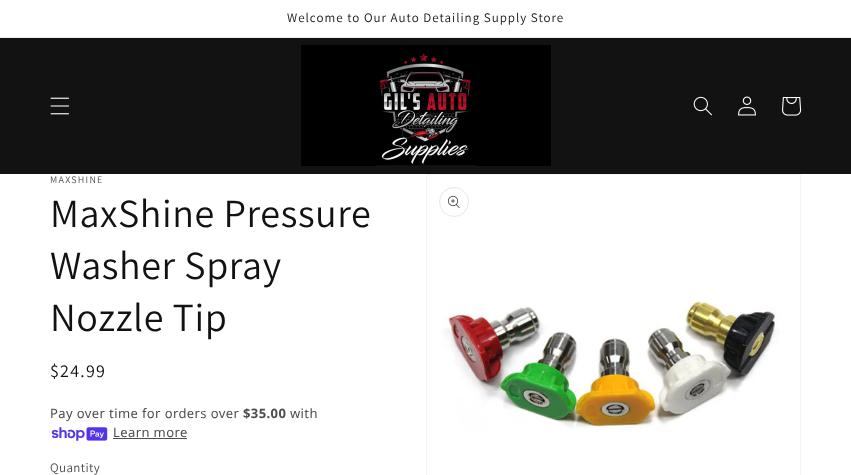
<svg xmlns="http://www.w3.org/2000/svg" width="851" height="475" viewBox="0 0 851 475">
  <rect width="100%" height="100%" fill="#fff"/>
  <path d="M0 37h851v1H0z" fill="#ececec"/>
  <path d="M0 38h851v136H0z" fill="#121212"/>
  <image x="50" y="97" width="20" height="18" href="img/1.png"/>
  <image x="301" y="45" width="250" height="121" href="img/2.png"/>
  <image x="693" y="96" width="19" height="20" href="img/3.png"/>
  <image x="738" y="96" width="18" height="20" href="img/4.png"/>
  <image x="782" y="97" width="20" height="19" href="img/5.png"/>
  <image x="51" y="427" width="57" height="14" href="img/6.png"/>
  <path d="M113 438h74v1H113z" fill="#4d4d4d"/>
  <path d="M426.5 174.5h374v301H426.5z" fill="none" stroke="#f3f3f3"/>
  <image x="442" y="301" width="338" height="129" href="img/7.png"/>
  <circle cx="454" cy="202" r="14.5" fill="none" stroke="#e7e7e7"/>
  <image x="448" y="196" width="12" height="12" href="img/8.png"/>
  <text x="287" y="22" font-family="Assistant" font-size="13" letter-spacing="1" fill="#121212">Welcome to Our Auto Detailing Supply Store</text>
  <text x="50" y="183" font-family="Assistant" font-size="10" letter-spacing="1.25" fill="#4d4d4d">MAXSHINE</text>
  <g font-family="Assistant" font-size="40" letter-spacing="0.6" fill="#121212">
    <text x="50" y="227">MaxShine Pressure</text>
    <text x="50" y="279">Washer Spray</text>
    <text x="50" y="331">Nozzle Tip</text>
  </g>
  <text x="50" y="377" font-family="Assistant" font-size="18" letter-spacing="1.25" fill="#121212">$24.99</text>
  <text x="50" y="418" font-family="Noto Sans" font-size="13" letter-spacing="0.4" fill="#4d4d4d">Pay over time for orders over</text>
  <text x="243" y="418" font-family="Noto Sans" font-size="13" font-weight="bold" letter-spacing="0.4" fill="#4d4d4d">$35.00</text>
  <g font-family="Noto Sans" font-size="13" letter-spacing="0.4" fill="#4d4d4d">
    <text x="290" y="418">with</text>
    <text x="113" y="437">Learn more</text>
  </g>
  <text x="50" y="472" font-family="Assistant" font-size="13" letter-spacing="0.4" fill="#4d4d4d">Quantity</text>
</svg>
